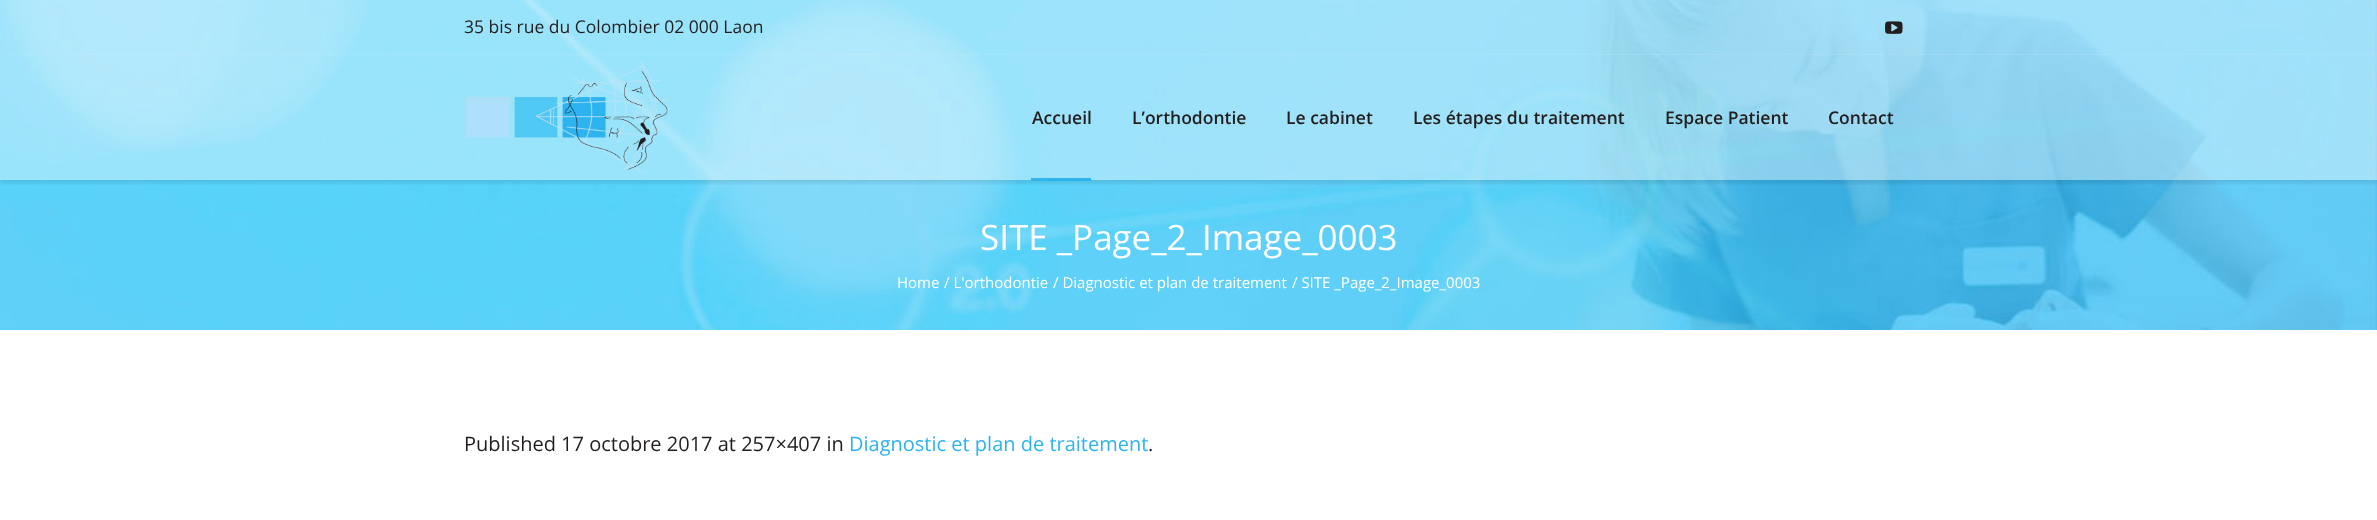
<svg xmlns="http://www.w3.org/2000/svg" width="2377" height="520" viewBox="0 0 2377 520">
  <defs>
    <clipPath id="clip1"><path d="M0 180h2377v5H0z"/></clipPath>
  </defs>
  <rect width="100%" height="100%" fill="#fff"/>
  <image x="0" y="0" width="2377" height="330" href="img/3.png"/>
  <path d="M0 0h2377v55H0z" fill="#ffffff66"/>
  <path d="M0 54h2377v1H0z" fill="#ffffff1a"/>
  <image x="1885" y="21" width="18" height="13" href="img/1.png"/>
  <path d="M0 55h2377v125H0z" fill="#ffffff66"/>
  <g clip-path="url(#clip1)">
    <path d="M0 58h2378v125H0z" fill="#0000001a" filter="blur(2px)"/>
  </g>
  <image x="466" y="61" width="202" height="113" href="img/2.png"/>
  <path d="M1031 178h60v3H1031z" fill="#2db3f0"/>
  <text x="464" y="33" font-family="Open Sans" font-size="17.5" fill="#221e1f">35 bis rue du Colombier 02 000 Laon</text>
  <g font-family="Open Sans" font-size="17.5" font-weight="600" fill="#221e1f">
    <text x="1032" y="124">Accueil</text>
    <text x="1132" y="124">L’orthodontie</text>
    <text x="1286" y="124">Le cabinet</text>
    <text x="1413" y="124">Les étapes du traitement</text>
    <text x="1665" y="124">Espace Patient</text>
    <text x="1828" y="124">Contact</text>
  </g>
  <text x="980" y="250" font-family="Open Sans" font-size="35" fill="#fff">SITE _Page_2_Image_0003</text>
  <g font-family="Open Sans" font-size="15" fill="#fff">
    <text x="897" y="288">Home</text>
    <text x="944" y="288">/ L'orthodontie</text>
    <text x="1053" y="288">/ Diagnostic et plan de traitement</text>
    <text x="1292" y="288">/ SITE _Page_2_Image_0003</text>
  </g>
  <text x="464" y="451" font-family="Open Sans" font-size="20" fill="#221e1f">Published 17 octobre 2017 at 257×407 in</text>
  <text x="849" y="451" font-family="Open Sans" font-size="20" fill="#2db3f0">Diagnostic et plan de traitement</text>
  <text x="1148" y="451" font-family="Open Sans" font-size="20" fill="#221e1f">.</text>
</svg>
